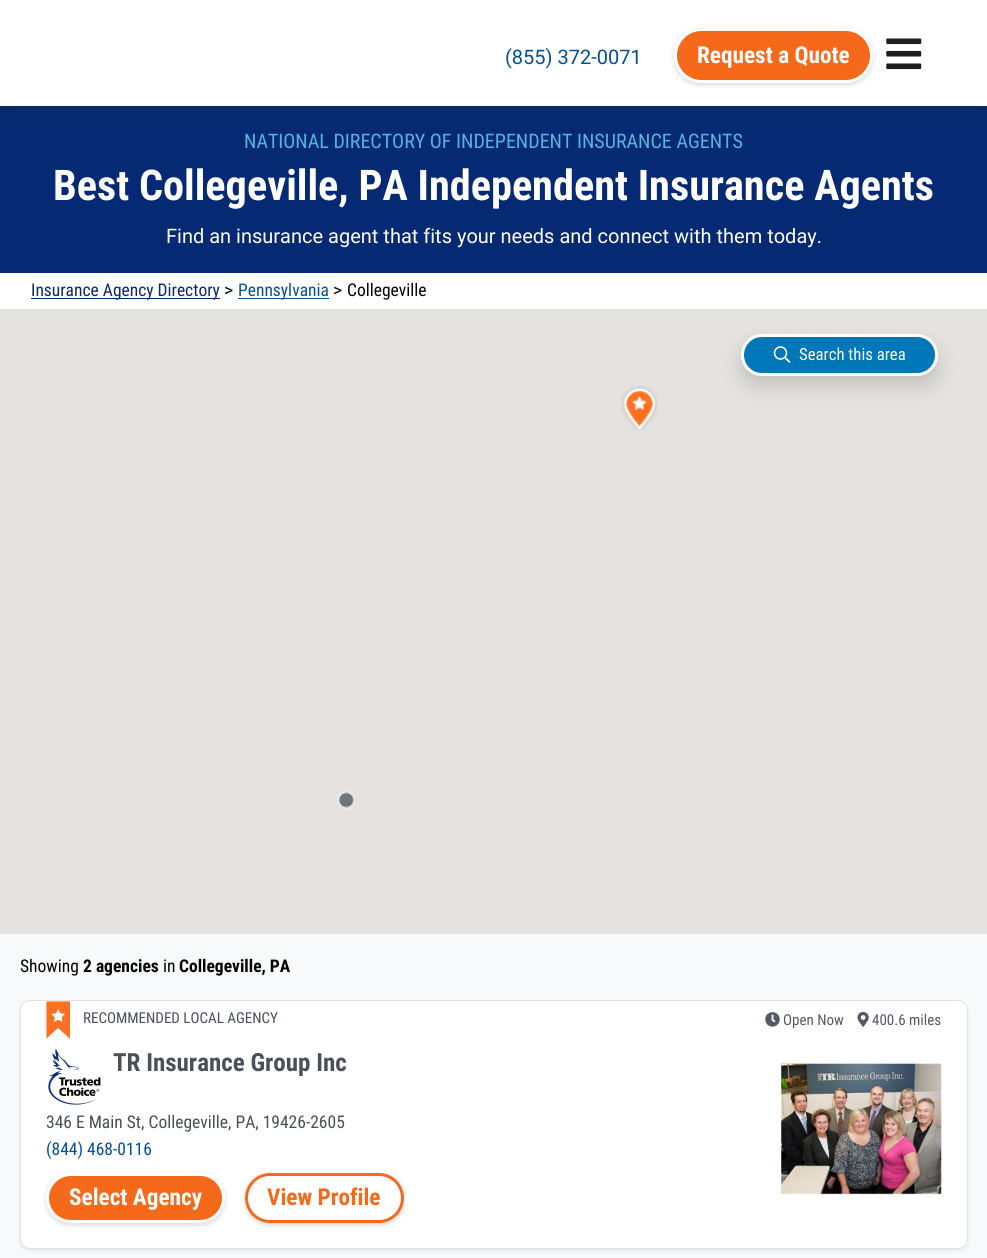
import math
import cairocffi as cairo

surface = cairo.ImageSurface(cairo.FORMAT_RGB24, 987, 1258)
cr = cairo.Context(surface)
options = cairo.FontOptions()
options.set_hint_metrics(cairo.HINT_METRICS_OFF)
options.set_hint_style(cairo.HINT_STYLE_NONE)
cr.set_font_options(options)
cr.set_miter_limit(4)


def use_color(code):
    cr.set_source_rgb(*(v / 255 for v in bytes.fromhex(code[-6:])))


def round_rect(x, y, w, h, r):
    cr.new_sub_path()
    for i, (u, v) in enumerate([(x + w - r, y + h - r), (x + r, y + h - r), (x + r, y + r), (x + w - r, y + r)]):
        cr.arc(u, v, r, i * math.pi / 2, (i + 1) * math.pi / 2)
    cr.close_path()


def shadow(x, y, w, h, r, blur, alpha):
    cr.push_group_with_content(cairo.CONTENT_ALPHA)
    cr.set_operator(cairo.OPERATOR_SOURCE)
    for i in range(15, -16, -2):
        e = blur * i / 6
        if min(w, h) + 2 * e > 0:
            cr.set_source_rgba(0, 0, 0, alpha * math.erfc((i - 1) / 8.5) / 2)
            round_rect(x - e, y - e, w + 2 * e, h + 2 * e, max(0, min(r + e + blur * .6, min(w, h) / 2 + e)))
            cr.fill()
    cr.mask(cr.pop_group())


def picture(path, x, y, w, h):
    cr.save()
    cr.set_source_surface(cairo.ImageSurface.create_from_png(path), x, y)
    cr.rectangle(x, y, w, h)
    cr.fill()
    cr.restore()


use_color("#ffffff")
cr.paint()
use_color("#062974")
cr.rectangle(0, 106, 987, 167)
cr.fill()
cr.save()
cr.rectangle(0, 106, 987, 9)
cr.clip()
use_color("#292929")
shadow(0, 3, 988, 106, 0, 4.5, 0.25)
cr.restore()
cr.select_font_face("Roboto")
cr.set_font_size(20)
use_color("#035096")
cr.move_to(505, 64)
cr.show_text("(855) 372-0071")
use_color("#000000")
shadow(674, 30, 199, 55, 27.5, 2.5, 0.15)
use_color("#f6691a")
round_rect(675.5, 29.5, 196, 52, 26)
cr.fill_preserve()
use_color("#ffffff")
cr.set_line_width(3)
cr.stroke()
cr.select_font_face("Roboto Condensed", cairo.FONT_SLANT_NORMAL, cairo.FONT_WEIGHT_BOLD)
cr.set_font_size(23.25)
cr.move_to(697, 63)
cr.show_text("Request a Quote")
picture("img1.png", 886, 38, 36, 32)
cr.select_font_face("Roboto Condensed")
cr.set_font_size(20)
use_color("#58b2dd")
cr.move_to(244, 148)
cr.show_text("NATIONAL DIRECTORY OF INDEPENDENT INSURANCE AGENTS")
cr.select_font_face("Roboto Condensed", cairo.FONT_SLANT_NORMAL, cairo.FONT_WEIGHT_BOLD)
cr.set_font_size(42.3)
use_color("#ffffff")
cr.move_to(53, 200)
cr.show_text("Best Collegeville, PA Independent Insurance Agents")
cr.select_font_face("Roboto")
cr.set_font_size(20)
cr.move_to(166, 243)
cr.show_text("Find an insurance agent that fits your needs and connect with them today.")
use_color("#062974")
cr.rectangle(31, 298, 189, 1)
cr.fill()
cr.select_font_face("Roboto Condensed")
cr.set_font_size(17.5)
cr.move_to(31, 296)
cr.show_text("Insurance Agency Directory")
cr.select_font_face("Roboto")
use_color("#030303")
cr.move_to(224, 296)
cr.show_text(">")
use_color("#035096")
cr.rectangle(238, 298, 91, 1)
cr.fill()
cr.select_font_face("Roboto Condensed")
cr.move_to(238, 296)
cr.show_text("Pennsylvania")
cr.select_font_face("Roboto")
use_color("#030303")
cr.move_to(333, 296)
cr.show_text(">")
cr.select_font_face("Roboto Condensed")
cr.move_to(347, 296)
cr.show_text("Collegeville")
use_color("#e5e3df")
cr.rectangle(0, 309, 987, 625)
cr.fill()
picture("img2.png", 621, 385, 37, 47)
picture("img3.png", 337, 791, 18, 18)
use_color("#000000")
shadow(741, 344, 197, 42, 21, 10, 0.15)
use_color("#0077b8")
round_rect(742.5, 335.5, 194, 39, 19.5)
cr.fill_preserve()
use_color("#ffffff")
cr.stroke()
picture("img4.png", 773, 346, 18, 17)
cr.set_font_size(16.75)
cr.move_to(799, 360)
cr.show_text("Search this area")
use_color("#f8f9fa")
cr.rectangle(0, 934, 987, 324)
cr.fill()
cr.set_font_size(17.5)
use_color("#030303")
cr.move_to(20, 972)
cr.show_text("Showing")
cr.select_font_face("Roboto Condensed", cairo.FONT_SLANT_NORMAL, cairo.FONT_WEIGHT_BOLD)
cr.move_to(83, 972)
cr.show_text("2 agencies")
cr.select_font_face("Roboto Condensed")
cr.move_to(163, 972)
cr.show_text("in")
cr.select_font_face("Roboto Condensed", cairo.FONT_SLANT_NORMAL, cairo.FONT_WEIGHT_BOLD)
cr.move_to(179, 972)
cr.show_text("Collegeville, PA")
use_color("#000000")
shadow(20, 1003, 948, 248, 10, 2.5, 0.07)
use_color("#ffffff")
round_rect(20, 1000, 948, 249, 10)
cr.fill()
round_rect(20.5, 1000.5, 947, 248, 9.5)
cr.set_source_rgba(0, 0, 0, 0.12)
cr.set_line_width(1)
cr.stroke()
picture("img5.png", 46, 1001, 24, 38)
cr.select_font_face("Roboto Condensed")
cr.set_font_size(15)
use_color("#495057")
cr.move_to(83, 1023)
cr.show_text("RECOMMENDED LOCAL AGENCY")
picture("img6.png", 765, 1012, 15, 15)
use_color("#545963")
cr.move_to(783, 1025)
cr.show_text("Open Now")
picture("img7.png", 857, 1011, 12, 16)
cr.move_to(872, 1025)
cr.show_text("400.6 miles")
picture("img8.png", 48, 1049, 53, 56)
cr.select_font_face("Roboto Condensed", cairo.FONT_SLANT_NORMAL, cairo.FONT_WEIGHT_BOLD)
cr.set_font_size(25)
use_color("#495057")
cr.move_to(113, 1071)
cr.show_text("TR Insurance Group Inc")
cr.select_font_face("Roboto Condensed")
cr.set_font_size(17.5)
cr.move_to(46, 1128)
cr.show_text("346 E Main St, Collegeville, PA, 19426-2605")
use_color("#035096")
cr.move_to(46, 1155)
cr.show_text("(844) 468-0116")
use_color("#000000")
shadow(46, 1175, 179, 50, 25, 2.5, 0.15)
use_color("#f6691a")
round_rect(47.5, 1174.5, 176, 47, 23.5)
cr.fill_preserve()
use_color("#ffffff")
cr.set_line_width(3)
cr.stroke()
cr.select_font_face("Roboto Condensed", cairo.FONT_SLANT_NORMAL, cairo.FONT_WEIGHT_BOLD)
cr.set_font_size(23.25)
cr.move_to(69, 1205)
cr.show_text("Select Agency")
cr.save()
cr.set_fill_rule(cairo.FILL_RULE_EVEN_ODD)
cr.new_path()
cr.move_to(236, 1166)
cr.line_to(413, 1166)
cr.line_to(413, 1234)
cr.line_to(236, 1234)
cr.close_path()
cr.move_to(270, 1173)
cr.line_to(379, 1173)
cr.curve_to(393, 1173, 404, 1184, 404, 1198)
cr.curve_to(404, 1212, 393, 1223, 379, 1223)
cr.line_to(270, 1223)
cr.curve_to(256, 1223, 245, 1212, 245, 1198)
cr.curve_to(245, 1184, 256, 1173, 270, 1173)
cr.close_path()
cr.clip()
use_color("#000000")
shadow(245, 1175, 159, 50, 25, 2.5, 0.15)
cr.restore()
round_rect(246.5, 1174.5, 156, 47, 23.5)
use_color("#f6691a")
cr.stroke()
cr.move_to(267, 1205)
cr.show_text("View Profile")
picture("img9.png", 781, 1063, 161, 132)
surface.write_to_png("result.png")
